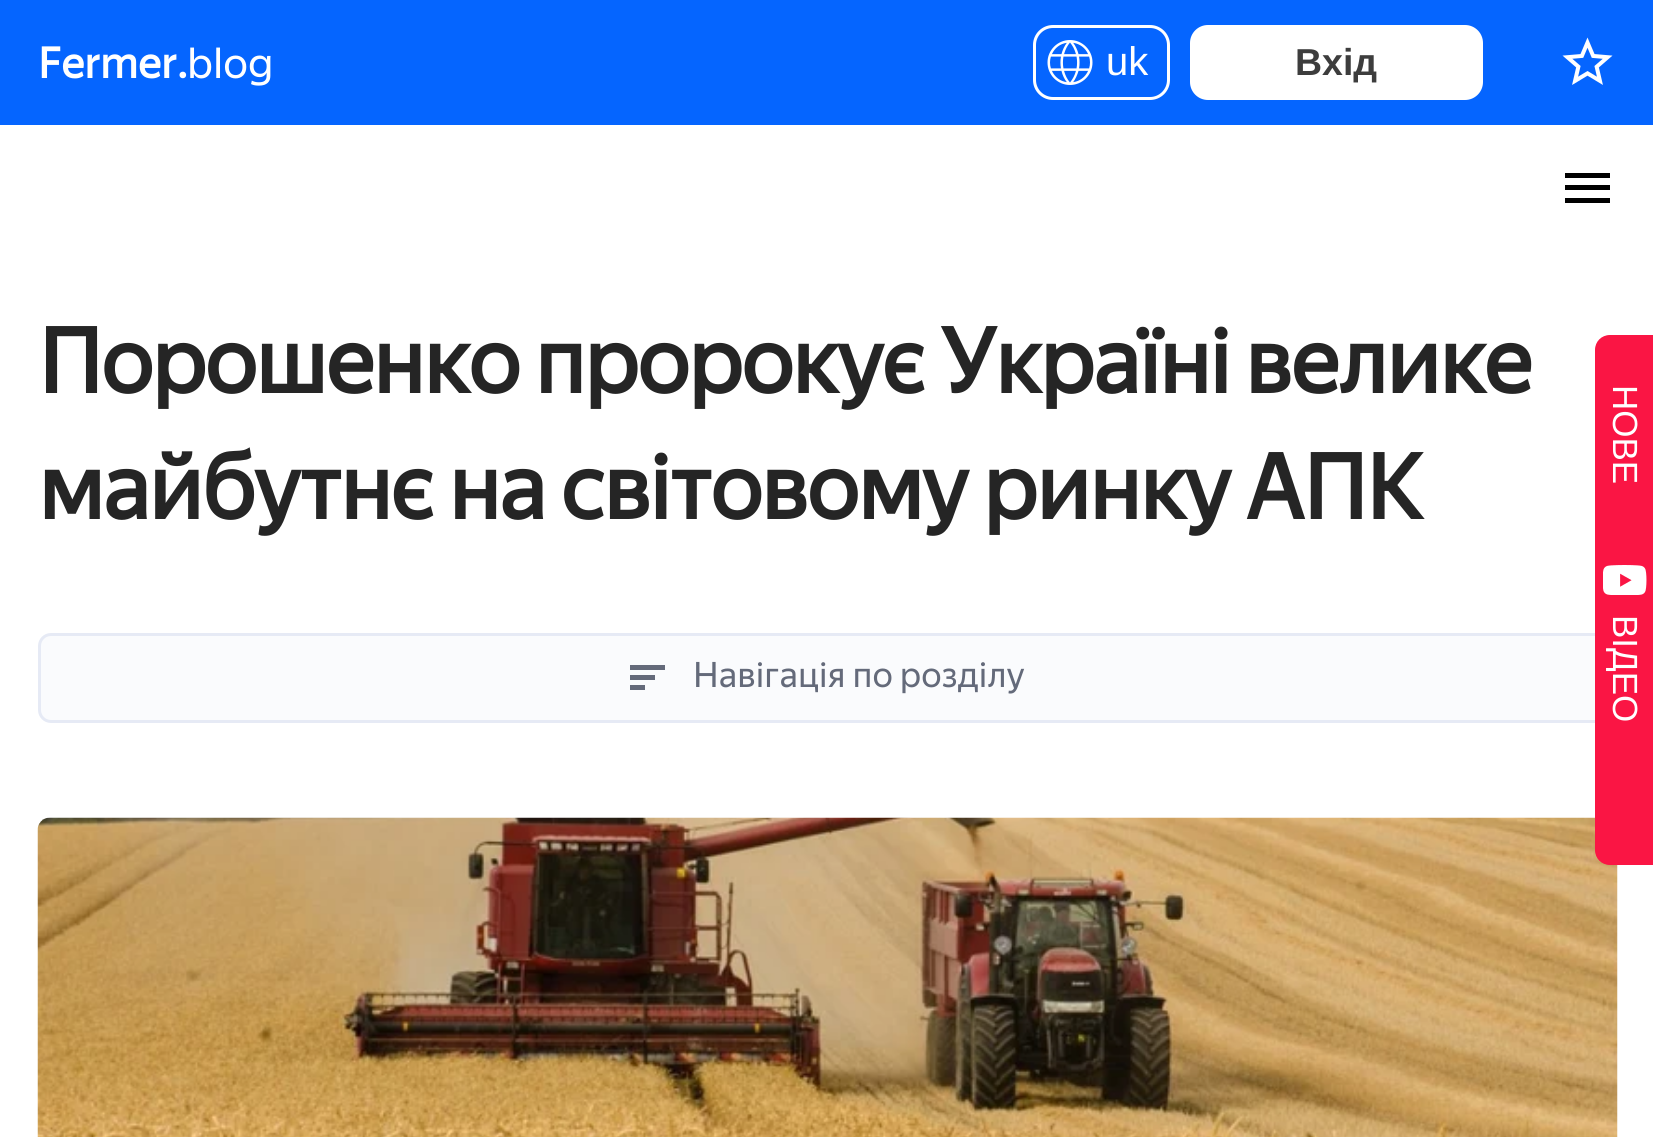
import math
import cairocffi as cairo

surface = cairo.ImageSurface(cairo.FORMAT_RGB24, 1653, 1137)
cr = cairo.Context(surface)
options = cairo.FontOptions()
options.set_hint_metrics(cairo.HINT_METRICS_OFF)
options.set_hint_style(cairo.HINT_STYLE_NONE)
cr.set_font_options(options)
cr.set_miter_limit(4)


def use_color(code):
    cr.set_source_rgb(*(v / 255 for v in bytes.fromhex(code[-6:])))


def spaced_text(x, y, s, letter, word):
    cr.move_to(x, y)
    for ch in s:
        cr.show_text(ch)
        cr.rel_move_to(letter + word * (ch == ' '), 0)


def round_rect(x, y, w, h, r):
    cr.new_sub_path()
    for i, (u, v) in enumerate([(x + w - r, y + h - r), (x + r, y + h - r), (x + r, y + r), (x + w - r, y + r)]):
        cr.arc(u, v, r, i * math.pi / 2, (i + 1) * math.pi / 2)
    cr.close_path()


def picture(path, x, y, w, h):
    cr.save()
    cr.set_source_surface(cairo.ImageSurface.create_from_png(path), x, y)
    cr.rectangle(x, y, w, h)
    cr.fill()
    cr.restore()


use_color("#ffffff")
cr.paint()
use_color("#0565ff")
cr.rectangle(0, 0, 1653, 125)
cr.fill()
cr.select_font_face("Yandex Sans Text", cairo.FONT_SLANT_NORMAL, cairo.FONT_WEIGHT_BOLD)
cr.set_font_size(42.5)
use_color("#ffffff")
cr.move_to(38, 78)
cr.show_text("Fermer.")
cr.select_font_face("Yandex Sans Text")
cr.move_to(187, 78)
cr.show_text("blog")
round_rect(1034.5, 26.5, 134, 72, 18.5)
cr.set_line_width(3)
cr.stroke()
picture("img1.png", 1047, 40, 46, 45)
cr.select_font_face("Liberation Sans")
cr.set_font_size(40)
cr.move_to(1106, 75)
cr.show_text("uk")
round_rect(1190, 25, 293, 75, 18)
cr.fill()
cr.select_font_face("Liberation Sans", cairo.FONT_SLANT_NORMAL, cairo.FONT_WEIGHT_BOLD)
cr.set_font_size(37.5)
use_color("#3d3d3d")
cr.move_to(1295, 75)
cr.show_text("Вхід")
picture("img2.png", 1562, 37, 51, 48)
use_color("#000000")
cr.rectangle(1565, 173, 45, 5)
cr.fill()
cr.rectangle(1565, 185, 45, 5)
cr.fill()
cr.rectangle(1565, 198, 45, 5)
cr.fill()
cr.select_font_face("Yandex Sans Text", cairo.FONT_SLANT_NORMAL, cairo.FONT_WEIGHT_BOLD)
cr.set_font_size(90)
use_color("#252525")
spaced_text(38, 393, "Порошенко пророкує Україні велике", -1.8, 0)
spaced_text(38, 519, "майбутнє на світовому ринку АПК", -1.8, 0)
use_color("#fafbfd")
round_rect(39.5, 634.5, 1577, 87, 11.5)
cr.fill_preserve()
use_color("#e6eaf5")
cr.stroke()
use_color("#646a7a")
cr.rectangle(630, 675, 25, 5)
cr.fill()
cr.rectangle(630, 665, 35, 5)
cr.fill()
cr.rectangle(630, 685, 15, 5)
cr.fill()
cr.select_font_face("Yandex Sans Text")
cr.set_font_size(35)
cr.move_to(693, 687)
cr.show_text("Навігація по розділу")
picture("img3.png", 37, 817, 1581, 320)
use_color("#fa1544")
cr.new_path()
cr.move_to(1610, 335)
cr.line_to(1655, 335)
cr.line_to(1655, 865)
cr.line_to(1610, 865)
cr.curve_to(1601.5, 865, 1595, 858.5, 1595, 850)
cr.line_to(1595, 350)
cr.curve_to(1595, 341.5, 1601.5, 335, 1610, 335)
cr.close_path()
cr.fill()
cr.select_font_face("Liberation Sans")
use_color("#ffffff")
cr.save()
cr.translate(1613, 385)
cr.rotate(90 * math.pi / 180)
cr.move_to(0, 0)
cr.show_text("НОВЕ")
cr.restore()
picture("img4.png", 1603, 565, 44, 30)
cr.save()
cr.translate(1613, 615)
cr.rotate(90 * math.pi / 180)
cr.move_to(0, 0)
cr.show_text("ВІДЕО")
cr.restore()
surface.write_to_png("result.png")
